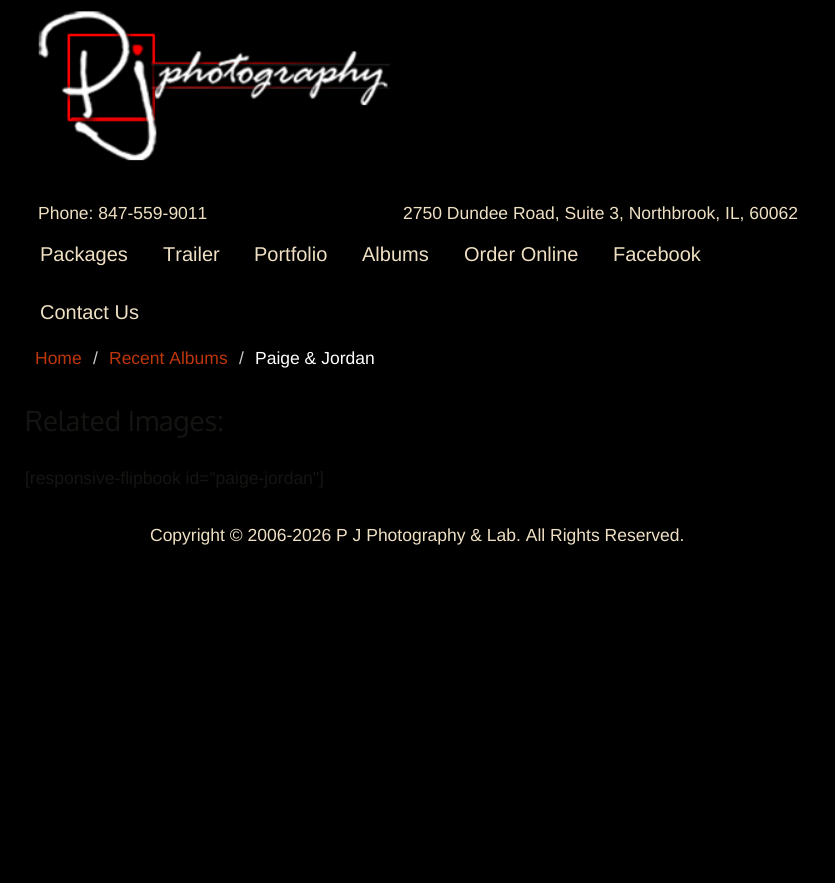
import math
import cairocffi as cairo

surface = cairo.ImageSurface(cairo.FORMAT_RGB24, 835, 883)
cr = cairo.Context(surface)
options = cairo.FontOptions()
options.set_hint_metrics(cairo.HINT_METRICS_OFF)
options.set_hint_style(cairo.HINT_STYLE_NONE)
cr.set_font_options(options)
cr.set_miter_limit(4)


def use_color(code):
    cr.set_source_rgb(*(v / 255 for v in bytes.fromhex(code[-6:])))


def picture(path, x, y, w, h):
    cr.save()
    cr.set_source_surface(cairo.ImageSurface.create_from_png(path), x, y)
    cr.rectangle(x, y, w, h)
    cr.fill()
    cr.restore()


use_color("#000000")
cr.paint()
picture("img1.png", 38, 11, 352, 150)
cr.select_font_face("Liberation Sans")
cr.set_font_size(17.5)
use_color("#efe0c3")
cr.move_to(38, 219)
cr.show_text("Phone: 847-559-9011")
cr.move_to(403, 219)
cr.show_text("2750 Dundee Road, Suite 3, Northbrook, IL, 60062")
cr.set_font_size(20)
cr.move_to(40, 261)
cr.show_text("Packages")
cr.move_to(163, 261)
cr.show_text("Trailer")
cr.move_to(254, 261)
cr.show_text("Portfolio")
cr.move_to(362, 261)
cr.show_text("Albums")
cr.move_to(464, 261)
cr.show_text("Order Online")
cr.move_to(613, 261)
cr.show_text("Facebook")
cr.move_to(40, 319)
cr.show_text("Contact Us")
cr.set_font_size(17.5)
use_color("#bc360a")
cr.move_to(35, 364)
cr.show_text("Home")
use_color("#cccccc")
cr.move_to(93, 364)
cr.show_text("/")
use_color("#bc360a")
cr.move_to(109, 364)
cr.show_text("Recent Albums")
use_color("#cccccc")
cr.move_to(239, 364)
cr.show_text("/")
use_color("#ffffff")
cr.move_to(255, 364)
cr.show_text("Paige & Jordan")
cr.select_font_face("Oxygen")
cr.set_font_size(27.5)
use_color("#141412")
cr.move_to(25, 431)
cr.show_text("Related Images:")
cr.select_font_face("Liberation Sans")
cr.set_font_size(17.5)
cr.move_to(25, 484)
cr.show_text("[responsive-flipbook id=\"paige-jordan\"]")
use_color("#efe0c3")
cr.move_to(150, 541)
cr.show_text("Copyright © 2006-2026 P J Photography & Lab. All Rights Reserved.")
surface.write_to_png("result.png")
